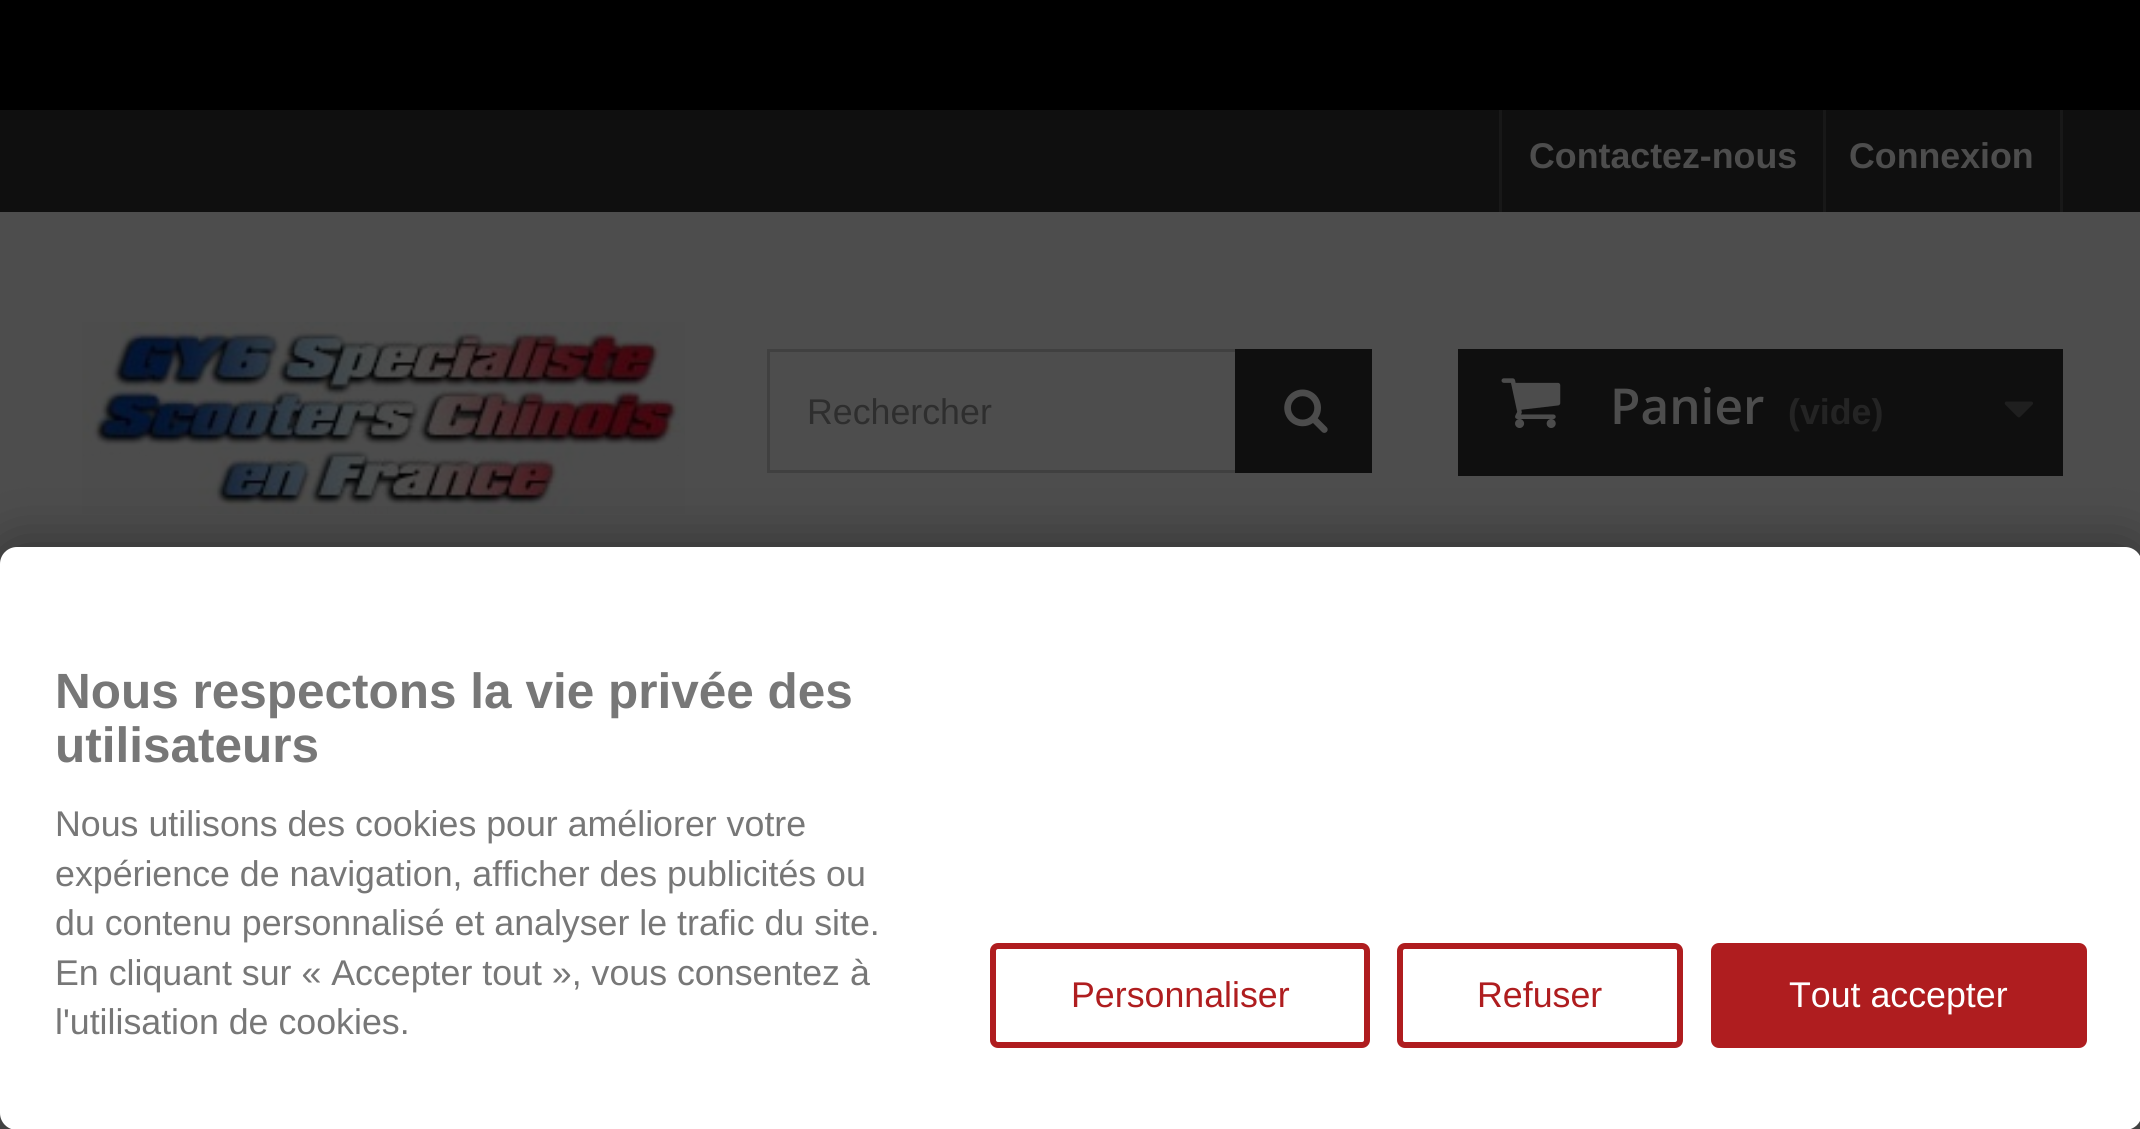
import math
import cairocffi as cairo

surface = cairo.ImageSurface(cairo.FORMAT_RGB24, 2140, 1129)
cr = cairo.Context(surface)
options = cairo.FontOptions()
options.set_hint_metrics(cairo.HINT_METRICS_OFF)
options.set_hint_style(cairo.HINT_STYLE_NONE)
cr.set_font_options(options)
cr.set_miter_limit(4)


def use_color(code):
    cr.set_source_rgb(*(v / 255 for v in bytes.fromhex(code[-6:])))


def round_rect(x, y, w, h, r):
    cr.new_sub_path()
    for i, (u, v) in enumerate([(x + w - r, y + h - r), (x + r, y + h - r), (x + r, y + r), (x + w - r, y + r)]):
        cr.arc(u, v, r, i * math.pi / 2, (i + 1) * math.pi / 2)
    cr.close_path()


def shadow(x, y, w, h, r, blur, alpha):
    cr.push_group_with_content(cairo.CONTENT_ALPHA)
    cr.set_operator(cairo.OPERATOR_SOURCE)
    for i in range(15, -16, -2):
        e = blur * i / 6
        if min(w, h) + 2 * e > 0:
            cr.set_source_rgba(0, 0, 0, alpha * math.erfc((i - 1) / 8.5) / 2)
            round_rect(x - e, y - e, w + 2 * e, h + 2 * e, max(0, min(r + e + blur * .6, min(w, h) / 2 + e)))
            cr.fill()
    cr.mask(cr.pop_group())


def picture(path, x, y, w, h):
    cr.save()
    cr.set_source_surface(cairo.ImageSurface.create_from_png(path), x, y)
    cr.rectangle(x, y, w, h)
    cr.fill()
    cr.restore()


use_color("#4d4d4d")
cr.paint()
use_color("#000000")
cr.rectangle(0, 0, 2140, 110)
cr.fill()
use_color("#0f0f0f")
cr.rectangle(0, 110, 2140, 102)
cr.fill()
use_color("#181818")
cr.rectangle(1499, 110, 3, 102)
cr.fill()
cr.select_font_face("Liberation Sans", cairo.FONT_SLANT_NORMAL, cairo.FONT_WEIGHT_BOLD)
cr.set_font_size(35.75)
use_color("#4d4d4d")
cr.move_to(1529, 168)
cr.show_text("Contactez-nous")
use_color("#181818")
cr.rectangle(2060, 110, 3, 102)
cr.fill()
cr.rectangle(1823, 110, 3, 102)
cr.fill()
use_color("#4d4d4d")
cr.move_to(1849, 168)
cr.show_text("Connexion")
picture("img1.png", 82, 321, 603, 193)
cr.rectangle(768.5, 350.5, 602, 121)
use_color("#404040")
cr.set_line_width(3)
cr.stroke()
cr.select_font_face("Liberation Sans")
use_color("#2e2e2e")
cr.move_to(807, 424)
cr.show_text("Rechercher")
use_color("#0f0f0f")
cr.rectangle(1235, 349, 137, 124)
cr.fill()
picture("img2.png", 1284, 389, 44, 44)
cr.rectangle(1458, 349, 605, 127)
cr.fill()
picture("img3.png", 1501, 378, 60, 50)
cr.select_font_face("Open Sans SemiBold")
cr.set_font_size(49.5)
use_color("#4d4d4d")
cr.move_to(1610, 424)
cr.show_text("Panier")
cr.select_font_face("Liberation Sans", cairo.FONT_SLANT_NORMAL, cairo.FONT_WEIGHT_BOLD)
cr.set_font_size(35.75)
use_color("#242424")
cr.move_to(1788, 424)
cr.show_text("(vide)")
picture("img4.png", 2004, 401, 29, 17)
use_color("#000000")
shadow(0, 547, 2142, 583, 17, 27.5, 0.4)
use_color("#ffffff")
round_rect(0, 547, 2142, 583, 17)
cr.fill()
cr.set_font_size(49.5)
use_color("#777777")
cr.move_to(55, 708)
cr.show_text("Nous respectons la vie privée des")
cr.move_to(55, 762)
cr.show_text("utilisateurs")
cr.select_font_face("Liberation Sans")
cr.set_font_size(35.75)
cr.move_to(55, 836)
cr.show_text("Nous utilisons des cookies pour améliorer votre")
cr.move_to(55, 886)
cr.show_text("expérience de navigation, afficher des publicités ou")
cr.move_to(55, 935)
cr.show_text("du contenu personnalisé et analyser le trafic du site.")
cr.move_to(55, 985)
cr.show_text("En cliquant sur « Accepter tout », vous consentez à")
cr.move_to(55, 1034)
cr.show_text("l'utilisation de cookies.")
round_rect(993, 946, 374, 99, 5)
use_color("#af1d1f")
cr.set_line_width(6)
cr.stroke()
cr.move_to(1071, 1007)
cr.show_text("Personnaliser")
round_rect(1400, 946, 280, 99, 5)
cr.stroke()
cr.move_to(1477, 1007)
cr.show_text("Refuser")
round_rect(1714, 946, 370, 99, 5)
cr.fill_preserve()
cr.stroke()
use_color("#ffffff")
cr.move_to(1789, 1007)
cr.show_text("Tout accepter")
surface.write_to_png("result.png")
